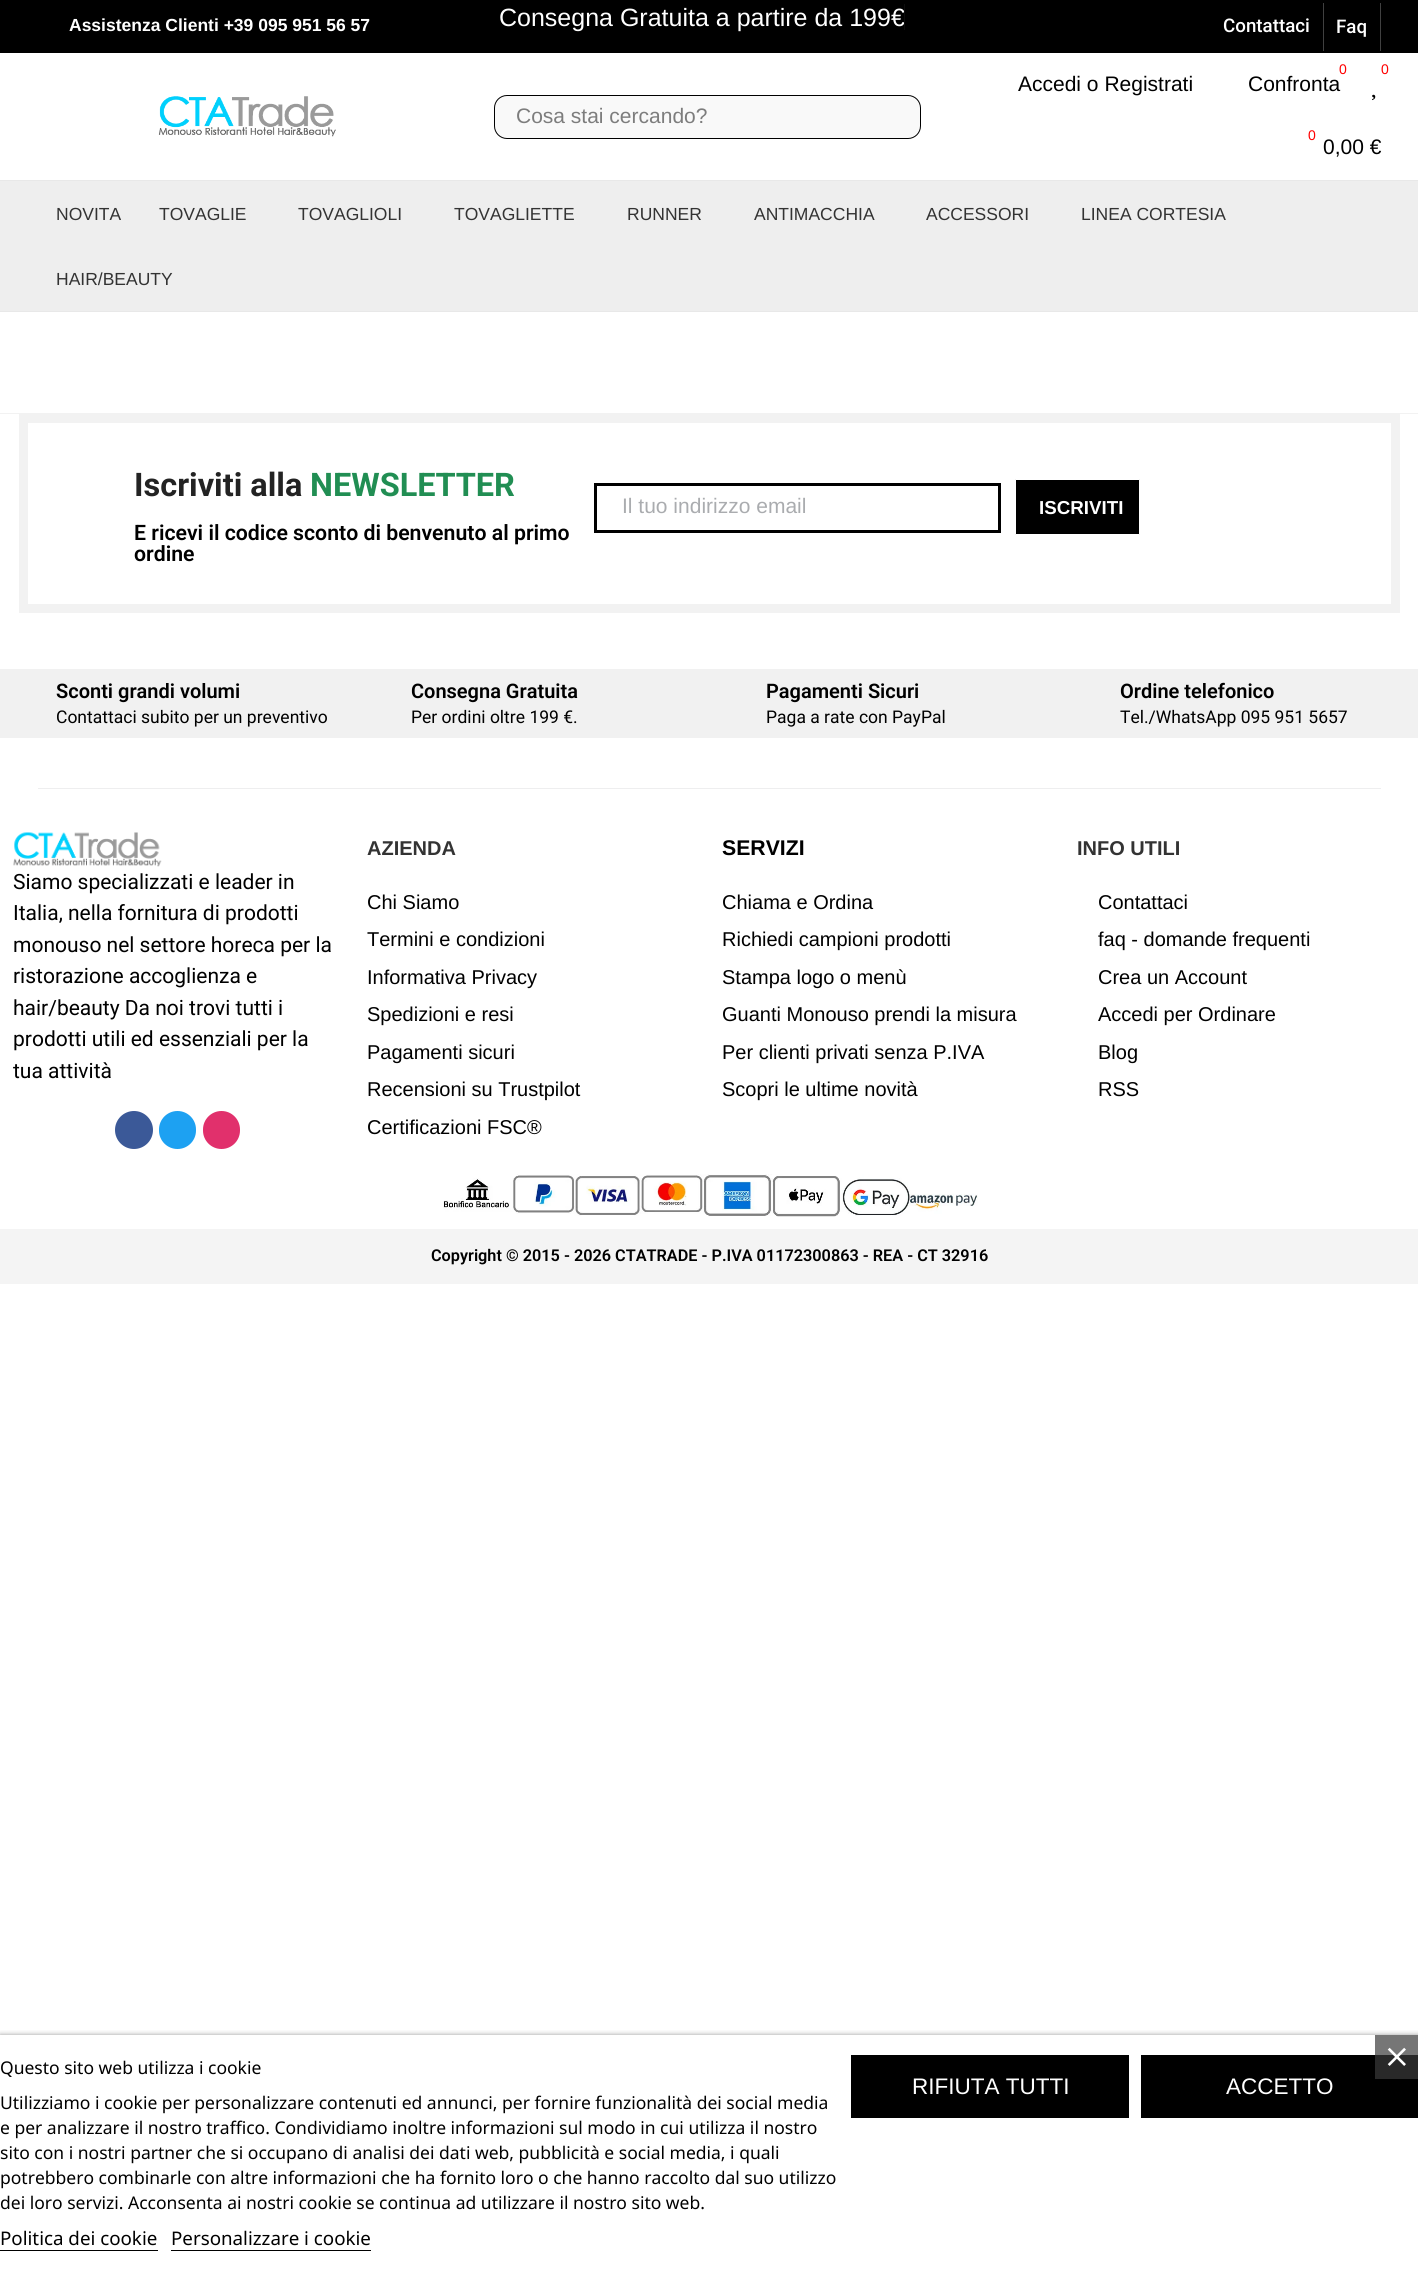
import math
import cairocffi as cairo

surface = cairo.ImageSurface(cairo.FORMAT_RGB24, 1418, 2269)
cr = cairo.Context(surface)
options = cairo.FontOptions()
options.set_hint_metrics(cairo.HINT_METRICS_OFF)
options.set_hint_style(cairo.HINT_STYLE_NONE)
cr.set_font_options(options)
cr.set_miter_limit(4)


def use_color(code):
    cr.set_source_rgb(*(v / 255 for v in bytes.fromhex(code[-6:])))


def round_rect(x, y, w, h, r):
    cr.new_sub_path()
    for i, (u, v) in enumerate([(x + w - r, y + h - r), (x + r, y + h - r), (x + r, y + r), (x + w - r, y + r)]):
        cr.arc(u, v, r, i * math.pi / 2, (i + 1) * math.pi / 2)
    cr.close_path()


def shadow(x, y, w, h, r, blur, alpha):
    cr.push_group_with_content(cairo.CONTENT_ALPHA)
    cr.set_operator(cairo.OPERATOR_SOURCE)
    for i in range(15, -16, -2):
        e = blur * i / 6
        if min(w, h) + 2 * e > 0:
            cr.set_source_rgba(0, 0, 0, alpha * math.erfc((i - 1) / 8.5) / 2)
            round_rect(x - e, y - e, w + 2 * e, h + 2 * e, max(0, min(r + e + blur * .6, min(w, h) / 2 + e)))
            cr.fill()
    cr.mask(cr.pop_group())


def picture(path, x, y, w, h):
    cr.save()
    cr.set_source_surface(cairo.ImageSurface.create_from_png(path), x, y)
    cr.rectangle(x, y, w, h)
    cr.fill()
    cr.restore()


use_color("#ffffff")
cr.paint()
use_color("#767676")
cr.rectangle(1375, 2035, 43, 20)
cr.fill()
use_color("#000000")
cr.rectangle(0, 0, 1418, 53)
cr.fill()
cr.select_font_face("Liberation Sans", cairo.FONT_SLANT_NORMAL, cairo.FONT_WEIGHT_BOLD)
cr.set_font_size(17.5)
use_color("#ffffff")
cr.move_to(69, 31)
cr.show_text("Assistenza Clienti +39 095 951 56 57")
cr.select_font_face("Liberation Sans")
cr.set_font_size(25)
cr.move_to(499, 26)
cr.show_text("Consegna Gratuita a partire da 199€")
use_color("#0d0d0d")
cr.rectangle(904, 4, 1, 26)
cr.fill()
cr.select_font_face("Roboto Medium")
cr.set_font_size(18.75)
use_color("#ffffff")
cr.move_to(1223, 32)
cr.show_text("Contattaci")
use_color("#404040")
cr.rectangle(1380, 3, 1, 48)
cr.fill()
cr.rectangle(1323, 3, 1, 48)
cr.fill()
use_color("#ffffff")
cr.move_to(1336, 33)
cr.show_text("Faq")
use_color("#e8e8e8")
cr.rectangle(0, 180, 1418, 1)
cr.fill()
picture("img1.png", 158, 96, 178, 41)
use_color("#f9f9f9")
round_rect(494.5, 95.5, 426, 43, 12.5)
cr.fill_preserve()
use_color("#000000")
cr.set_line_width(1)
cr.stroke()
cr.select_font_face("Liberation Sans")
cr.set_font_size(21)
use_color("#7d7d7d")
cr.move_to(516, 123)
cr.show_text("Cosa stai cercando?")
cr.set_font_size(14)
use_color("#ff0000")
cr.move_to(1339, 74)
cr.show_text("0")
cr.set_font_size(21)
use_color("#000000")
cr.move_to(1248, 91)
cr.show_text("Confronta")
cr.set_font_size(14)
use_color("#ff0000")
cr.move_to(1381, 74)
cr.show_text("0")
picture("img2.png", 1372, 94, 4, 7)
cr.set_font_size(21)
use_color("#000000")
cr.move_to(1018, 91)
cr.show_text("Accedi o Registrati")
cr.set_font_size(14)
use_color("#ff0000")
cr.move_to(1308, 140)
cr.show_text("0")
cr.set_font_size(21)
use_color("#000000")
cr.move_to(1323, 154)
cr.show_text("0,00 €")
use_color("#eeeeee")
cr.rectangle(0, 181, 1418, 130)
cr.fill()
use_color("#e8e8e8")
cr.rectangle(0, 311, 1418, 1)
cr.fill()
cr.set_font_size(17.5)
use_color("#333333")
cr.move_to(56, 220)
cr.show_text("NOVITA")
cr.move_to(159, 220)
cr.show_text("TOVAGLIE")
cr.move_to(298, 220)
cr.show_text("TOVAGLIOLI")
cr.move_to(454, 220)
cr.show_text("TOVAGLIETTE")
cr.move_to(627, 220)
cr.show_text("RUNNER")
cr.move_to(754, 220)
cr.show_text("ANTIMACCHIA")
cr.move_to(926, 220)
cr.show_text("ACCESSORI")
cr.move_to(1081, 220)
cr.show_text("LINEA CORTESIA")
cr.move_to(56, 285)
cr.show_text("HAIR/BEAUTY")
use_color("#f2f2f2")
cr.rectangle(0, 413, 1418, 1)
cr.fill()
cr.rectangle(23.5, 418.5, 1372, 190)
cr.set_line_width(9)
cr.stroke()
cr.select_font_face("Roboto", cairo.FONT_SLANT_NORMAL, cairo.FONT_WEIGHT_BOLD)
cr.set_font_size(32.5)
use_color("#232323")
cr.move_to(134, 496)
cr.show_text("Iscriviti alla")
use_color("#218e53")
cr.move_to(310, 496)
cr.show_text("NEWSLETTER")
cr.select_font_face("Roboto SemiBold")
cr.set_font_size(21.25)
use_color("#000000")
cr.move_to(134, 540)
cr.show_text("E ricevi il codice sconto di benvenuto al primo")
cr.move_to(134, 561)
cr.show_text("ordine")
cr.rectangle(595.5, 484.5, 404, 47)
cr.set_line_width(3)
cr.stroke()
cr.select_font_face("Liberation Sans")
cr.set_font_size(21)
use_color("#aaacaf")
cr.move_to(622, 513)
cr.show_text("Il tuo indirizzo email")
use_color("#000000")
round_rect(1015.5, 479.5, 124, 55, 0.5)
cr.fill_preserve()
use_color("#ffffff")
cr.set_line_width(1)
cr.stroke()
cr.select_font_face("Liberation Sans", cairo.FONT_SLANT_NORMAL, cairo.FONT_WEIGHT_BOLD)
cr.set_font_size(18.75)
cr.move_to(1039, 514)
cr.show_text("ISCRIVITI")
use_color("#f1f1f1")
cr.rectangle(0, 669, 1418, 69)
cr.fill()
cr.select_font_face("Roboto SemiBold")
cr.set_font_size(20)
use_color("#000000")
cr.move_to(56, 698)
cr.show_text("Sconti grandi volumi")
cr.select_font_face("Roboto")
cr.set_font_size(17.5)
cr.move_to(56, 723)
cr.show_text("Contattaci subito per un preventivo")
cr.select_font_face("Roboto SemiBold")
cr.set_font_size(20)
cr.move_to(411, 698)
cr.show_text("Consegna Gratuita")
cr.select_font_face("Roboto")
cr.set_font_size(17.5)
cr.move_to(411, 723)
cr.show_text("Per ordini oltre 199 €.")
cr.select_font_face("Roboto SemiBold")
cr.set_font_size(20)
cr.move_to(766, 698)
cr.show_text("Pagamenti Sicuri")
cr.select_font_face("Roboto")
cr.set_font_size(17.5)
cr.move_to(766, 723)
cr.show_text("Paga a rate con PayPal")
cr.select_font_face("Roboto SemiBold")
cr.set_font_size(20)
cr.move_to(1120, 698)
cr.show_text("Ordine telefonico")
cr.select_font_face("Roboto")
cr.set_font_size(17.5)
cr.move_to(1120, 723)
cr.show_text("Tel./WhatsApp 095 951 5657")
use_color("#eeeeef")
cr.rectangle(38, 788, 1343, 1)
cr.fill()
picture("img3.png", 13, 832, 149, 35)
cr.set_font_size(21)
use_color("#000000")
cr.move_to(13, 889)
cr.show_text("Siamo specializzati e leader in")
cr.move_to(13, 920)
cr.show_text("Italia, nella fornitura di prodotti")
cr.move_to(13, 952)
cr.show_text("monouso nel settore horeca per la")
cr.move_to(13, 983)
cr.show_text("ristorazione accoglienza e")
cr.move_to(13, 1015)
cr.show_text("hair/beauty Da noi trovi tutti i")
cr.move_to(13, 1046)
cr.show_text("prodotti utili ed essenziali per la")
cr.move_to(13, 1078)
cr.show_text("tua attività")
use_color("#3b5998")
cr.new_path()
cr.arc(134, 1130, 19, 0, 2 * math.pi)
cr.fill()
use_color("#1da1f2")
round_rect(159, 1111, 37, 38, 18.5)
cr.fill()
use_color("#e1306c")
round_rect(203, 1111, 37, 38, 18.5)
cr.fill()
cr.select_font_face("Liberation Sans", cairo.FONT_SLANT_NORMAL, cairo.FONT_WEIGHT_BOLD)
cr.set_font_size(20)
use_color("#333333")
cr.move_to(367, 855)
cr.show_text("AZIENDA")
cr.select_font_face("Liberation Sans")
use_color("#000000")
cr.move_to(367, 909)
cr.show_text("Chi Siamo")
cr.move_to(367, 946)
cr.show_text("Termini e condizioni")
cr.move_to(367, 984)
cr.show_text("Informativa Privacy")
cr.move_to(367, 1021)
cr.show_text("Spedizioni e resi")
cr.move_to(367, 1059)
cr.show_text("Pagamenti sicuri")
cr.move_to(367, 1096)
cr.show_text("Recensioni su Trustpilot")
cr.move_to(367, 1134)
cr.show_text("Certificazioni FSC®")
cr.select_font_face("Liberation Sans", cairo.FONT_SLANT_NORMAL, cairo.FONT_WEIGHT_BOLD)
cr.set_font_size(21.25)
cr.move_to(722, 855)
cr.show_text("SERVIZI")
cr.select_font_face("Liberation Sans")
cr.set_font_size(20)
cr.move_to(722, 909)
cr.show_text("Chiama e Ordina")
cr.move_to(722, 946)
cr.show_text("Richiedi campioni prodotti")
cr.move_to(722, 984)
cr.show_text("Stampa logo o menù")
cr.move_to(722, 1021)
cr.show_text("Guanti Monouso prendi la misura")
cr.move_to(722, 1059)
cr.show_text("Per clienti privati senza P.IVA")
cr.move_to(722, 1096)
cr.show_text("Scopri le ultime novità")
cr.select_font_face("Liberation Sans", cairo.FONT_SLANT_NORMAL, cairo.FONT_WEIGHT_BOLD)
use_color("#333333")
cr.move_to(1077, 855)
cr.show_text("INFO UTILI")
cr.select_font_face("Liberation Sans")
use_color("#000000")
cr.move_to(1098, 909)
cr.show_text("Contattaci")
cr.move_to(1098, 946)
cr.show_text("faq - domande frequenti")
cr.move_to(1098, 984)
cr.show_text("Crea un Account")
cr.move_to(1098, 1021)
cr.show_text("Accedi per Ordinare")
cr.move_to(1098, 1059)
cr.show_text("Blog")
cr.move_to(1098, 1096)
cr.show_text("RSS")
picture("img4.png", 443, 1174, 535, 43)
use_color("#f4f4f4")
cr.rectangle(0, 1229, 1418, 55)
cr.fill()
cr.select_font_face("Roboto SemiBold")
cr.set_font_size(16.25)
use_color("#000000")
cr.move_to(431, 1261)
cr.show_text("Copyright © 2015 - 2026 CTATRADE - P.IVA 01172300863 - REA - CT 32916")
cr.save()
cr.rectangle(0, 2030, 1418, 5)
cr.clip()
use_color("#707070")
shadow(0, 2036, 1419, 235, 0, 3, 1)
cr.restore()
cr.rectangle(1141, 2055, 277, 63)
cr.fill()
use_color("#292929")
cr.rectangle(1375, 2055, 43, 24)
cr.fill()
picture("img5.png", 1387, 2047, 19, 19)
cr.select_font_face("Noto Sans")
cr.set_font_size(17.5)
use_color("#000000")
cr.move_to(0, 2074)
cr.show_text("Questo sito web utilizza i cookie")
cr.move_to(0, 2109)
cr.show_text("Utilizziamo i cookie per personalizzare contenuti ed annunci, per fornire funzionalità dei social media")
cr.move_to(0, 2134)
cr.show_text("e per analizzare il nostro traffico. Condividiamo inoltre informazioni sul modo in cui utilizza il nostro")
cr.move_to(0, 2159)
cr.show_text("sito con i nostri partner che si occupano di analisi dei dati web, pubblicità e social media, i quali")
cr.move_to(0, 2184)
cr.show_text("potrebbero combinarle con altre informazioni che ha fornito loro o che hanno raccolto dal suo utilizzo")
cr.move_to(0, 2209)
cr.show_text("dei loro servizi. Acconsenta ai nostri cookie se continua ad utilizzare il nostro sito web.")
cr.set_font_size(18.75)
cr.move_to(0, 2245)
cr.show_text("Politica dei cookie")
cr.rectangle(0, 2250, 158, 1)
cr.fill()
cr.move_to(171, 2245)
cr.show_text("Personalizzare i cookie")
cr.rectangle(171, 2250, 200, 1)
cr.fill()
cr.rectangle(851, 2055, 278, 63)
cr.fill()
cr.select_font_face("Liberation Sans")
cr.set_font_size(22.5)
use_color("#ffffff")
cr.move_to(912, 2094)
cr.show_text("RIFIUTA TUTTI")
cr.move_to(1226, 2094)
cr.show_text("ACCETTO")
surface.write_to_png("result.png")
